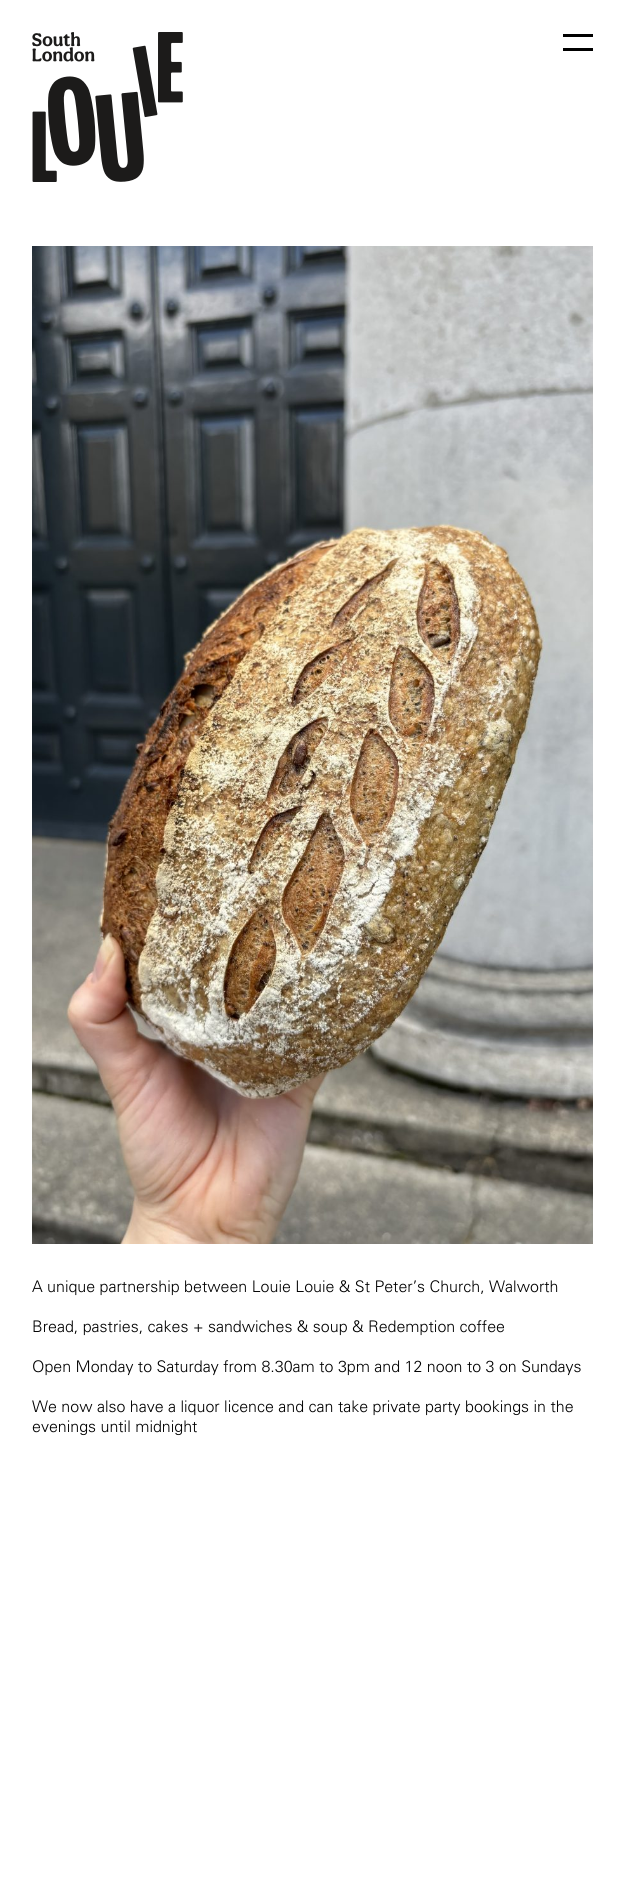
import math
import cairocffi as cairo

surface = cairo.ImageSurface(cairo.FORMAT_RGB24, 625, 1879)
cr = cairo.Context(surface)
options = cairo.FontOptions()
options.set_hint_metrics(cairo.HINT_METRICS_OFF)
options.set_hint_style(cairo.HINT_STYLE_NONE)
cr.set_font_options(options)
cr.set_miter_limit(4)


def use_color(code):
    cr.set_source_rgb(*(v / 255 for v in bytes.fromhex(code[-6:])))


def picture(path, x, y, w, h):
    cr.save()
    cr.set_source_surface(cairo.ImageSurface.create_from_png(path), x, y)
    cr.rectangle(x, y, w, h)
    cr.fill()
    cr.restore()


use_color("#ffffff")
cr.paint()
picture("img1.png", 32, 32, 151, 150)
use_color("#000000")
cr.rectangle(563, 34, 30, 3)
cr.fill()
cr.rectangle(563, 48, 30, 3)
cr.fill()
picture("img2.png", 32, 246, 561, 998)
cr.select_font_face("Univers Light")
cr.set_font_size(16)
cr.move_to(32, 1292)
cr.show_text("A unique partnership between Louie Louie & St Peter’s Church, Walworth")
cr.move_to(32, 1332)
cr.show_text("Bread, pastries, cakes + sandwiches & soup & Redemption coffee")
cr.move_to(32, 1372)
cr.show_text("Open Monday to Saturday from 8.30am to 3pm and 12 noon to 3 on Sundays")
cr.move_to(32, 1412)
cr.show_text("We now also have a liquor licence and can take private party bookings in the")
cr.move_to(32, 1432)
cr.show_text("evenings until midnight")
surface.write_to_png("result.png")
